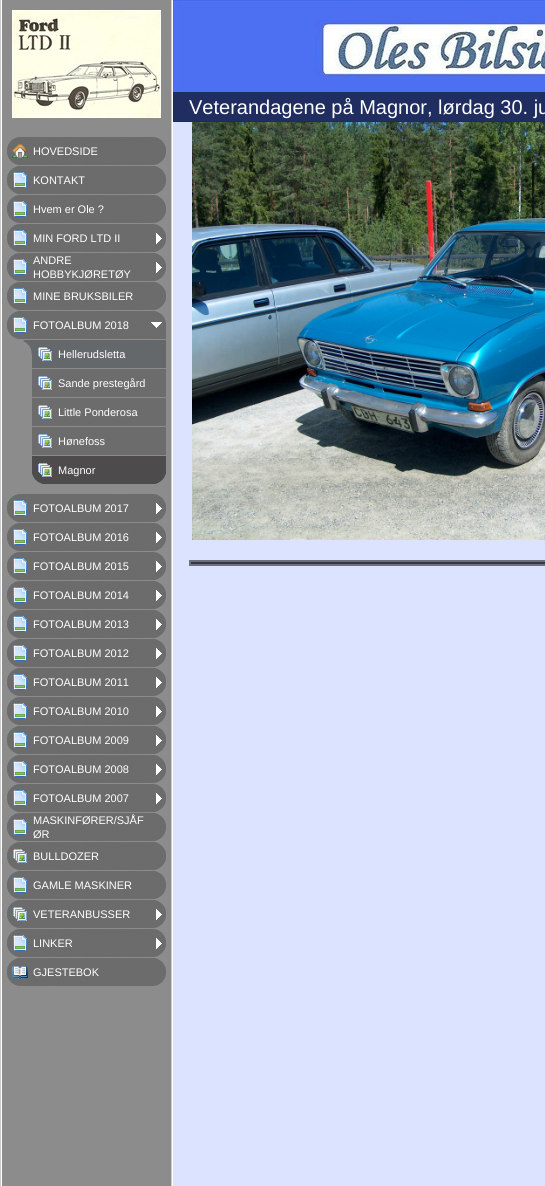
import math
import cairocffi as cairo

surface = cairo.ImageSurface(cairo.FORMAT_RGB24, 545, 1186)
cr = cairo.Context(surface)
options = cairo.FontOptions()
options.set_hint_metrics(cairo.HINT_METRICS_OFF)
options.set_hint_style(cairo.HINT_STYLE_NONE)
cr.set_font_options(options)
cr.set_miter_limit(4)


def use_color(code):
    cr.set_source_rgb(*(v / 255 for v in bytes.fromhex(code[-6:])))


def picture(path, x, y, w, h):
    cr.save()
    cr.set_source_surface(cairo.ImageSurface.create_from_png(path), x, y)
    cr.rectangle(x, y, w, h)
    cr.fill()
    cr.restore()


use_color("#ffffff")
cr.paint()
use_color("#cccccc")
cr.rectangle(0, 0, 1, 1186)
cr.fill()
cr.rectangle(171, 0, 1, 1186)
cr.fill()
use_color("#dbe3ff")
cr.rectangle(173, 122, 372, 1064)
cr.fill()
picture("img1.png", 173, 0, 372, 122)
cr.set_source_rgba(0, 0, 0, 0.6)
cr.rectangle(173, 92, 372, 30)
cr.fill()
cr.select_font_face("Liberation Sans")
cr.set_font_size(20)
use_color("#ffffff")
cr.move_to(189, 114)
cr.show_text("Veterandagene på Magnor, lørdag 30. ju")
picture("img2.png", 192, 122, 353, 418)
picture("img3.png", 189, 560, 356, 6)
use_color("#8c8c8c")
cr.rectangle(2, 0, 169, 1186)
cr.fill()
picture("img4.png", 12, 10, 149, 108)
picture("img5.png", 7, 137, 159, 28)
picture("img6.png", 12, 144, 16, 14)
cr.set_font_size(11)
use_color("#ffffff")
cr.move_to(33, 155)
cr.show_text("HOVEDSIDE")
picture("img5.png", 7, 166, 159, 28)
picture("img7.png", 13, 172, 14, 16)
cr.move_to(33, 184)
cr.show_text("KONTAKT")
picture("img5.png", 7, 195, 159, 28)
picture("img7.png", 13, 201, 14, 16)
cr.move_to(33, 213)
cr.show_text("Hvem er Ole ?")
picture("img5.png", 7, 224, 159, 28)
picture("img7.png", 13, 230, 14, 16)
picture("img8.png", 156, 233, 6, 11)
cr.move_to(33, 242)
cr.show_text("MIN FORD LTD II")
picture("img5.png", 7, 253, 159, 28)
picture("img7.png", 13, 259, 14, 16)
picture("img8.png", 156, 262, 6, 11)
cr.move_to(33, 264)
cr.show_text("ANDRE")
cr.move_to(33, 278)
cr.show_text("HOBBYKJØRETØY")
picture("img5.png", 7, 282, 159, 28)
picture("img7.png", 13, 288, 14, 16)
cr.move_to(33, 300)
cr.show_text("MINE BRUKSBILER")
picture("img9.png", 7, 311, 159, 28)
picture("img10.png", 13, 317, 14, 16)
picture("img11.png", 151, 322, 11, 6)
cr.move_to(33, 329)
cr.show_text("FOTOALBUM 2018")
picture("img12.png", 23, 340, 143, 28)
picture("img13.png", 38, 347, 14, 14)
cr.move_to(58, 358)
cr.show_text("Hellerudsletta")
use_color("#6d6c6c")
cr.rectangle(32, 369, 134, 28)
cr.fill()
picture("img14.png", 38, 376, 14, 14)
use_color("#ffffff")
cr.move_to(58, 387)
cr.show_text("Sande prestegård")
use_color("#6d6c6c")
cr.rectangle(32, 398, 134, 28)
cr.fill()
picture("img14.png", 38, 405, 14, 14)
use_color("#ffffff")
cr.move_to(58, 416)
cr.show_text("Little Ponderosa")
use_color("#6d6c6c")
cr.rectangle(32, 427, 134, 28)
cr.fill()
picture("img14.png", 38, 434, 14, 14)
use_color("#ffffff")
cr.move_to(58, 445)
cr.show_text("Hønefoss")
picture("img15.png", 32, 456, 134, 28)
picture("img16.png", 38, 463, 14, 14)
cr.move_to(58, 474)
cr.show_text("Magnor")
picture("img5.png", 7, 494, 159, 28)
picture("img7.png", 13, 500, 14, 16)
picture("img8.png", 156, 503, 6, 11)
cr.move_to(33, 512)
cr.show_text("FOTOALBUM 2017")
picture("img5.png", 7, 523, 159, 28)
picture("img7.png", 13, 529, 14, 16)
picture("img8.png", 156, 532, 6, 11)
cr.move_to(33, 541)
cr.show_text("FOTOALBUM 2016")
picture("img5.png", 7, 552, 159, 28)
picture("img7.png", 13, 558, 14, 16)
picture("img8.png", 156, 561, 6, 11)
cr.move_to(33, 570)
cr.show_text("FOTOALBUM 2015")
picture("img5.png", 7, 581, 159, 28)
picture("img7.png", 13, 587, 14, 16)
picture("img8.png", 156, 590, 6, 11)
cr.move_to(33, 599)
cr.show_text("FOTOALBUM 2014")
picture("img5.png", 7, 610, 159, 28)
picture("img7.png", 13, 616, 14, 16)
picture("img8.png", 156, 619, 6, 11)
cr.move_to(33, 628)
cr.show_text("FOTOALBUM 2013")
picture("img5.png", 7, 639, 159, 28)
picture("img7.png", 13, 645, 14, 16)
picture("img8.png", 156, 648, 6, 11)
cr.move_to(33, 657)
cr.show_text("FOTOALBUM 2012")
picture("img5.png", 7, 668, 159, 28)
picture("img7.png", 13, 674, 14, 16)
picture("img8.png", 156, 677, 6, 11)
cr.move_to(33, 686)
cr.show_text("FOTOALBUM 2011")
picture("img5.png", 7, 697, 159, 28)
picture("img7.png", 13, 703, 14, 16)
picture("img8.png", 156, 706, 6, 11)
cr.move_to(33, 715)
cr.show_text("FOTOALBUM 2010")
picture("img5.png", 7, 726, 159, 28)
picture("img7.png", 13, 732, 14, 16)
picture("img8.png", 156, 735, 6, 11)
cr.move_to(33, 744)
cr.show_text("FOTOALBUM 2009")
picture("img5.png", 7, 755, 159, 28)
picture("img7.png", 13, 761, 14, 16)
picture("img8.png", 156, 764, 6, 11)
cr.move_to(33, 773)
cr.show_text("FOTOALBUM 2008")
picture("img5.png", 7, 784, 159, 28)
picture("img7.png", 13, 790, 14, 16)
picture("img8.png", 156, 793, 6, 11)
cr.move_to(33, 802)
cr.show_text("FOTOALBUM 2007")
picture("img5.png", 7, 813, 159, 28)
picture("img7.png", 13, 819, 14, 16)
cr.move_to(33, 824)
cr.show_text("MASKINFØRER/SJÅF")
cr.move_to(33, 838)
cr.show_text("ØR")
picture("img5.png", 7, 842, 159, 28)
picture("img17.png", 13, 849, 14, 14)
cr.move_to(33, 860)
cr.show_text("BULLDOZER")
picture("img5.png", 7, 871, 159, 28)
picture("img7.png", 13, 877, 14, 16)
cr.move_to(33, 889)
cr.show_text("GAMLE MASKINER")
picture("img5.png", 7, 900, 159, 28)
picture("img17.png", 13, 907, 14, 14)
picture("img8.png", 156, 909, 6, 11)
cr.move_to(33, 918)
cr.show_text("VETERANBUSSER")
picture("img5.png", 7, 929, 159, 28)
picture("img7.png", 13, 935, 14, 16)
picture("img8.png", 156, 938, 6, 11)
cr.move_to(33, 947)
cr.show_text("LINKER")
picture("img5.png", 7, 958, 159, 28)
picture("img18.png", 12, 966, 16, 13)
cr.move_to(33, 976)
cr.show_text("GJESTEBOK")
surface.write_to_png("result.png")
